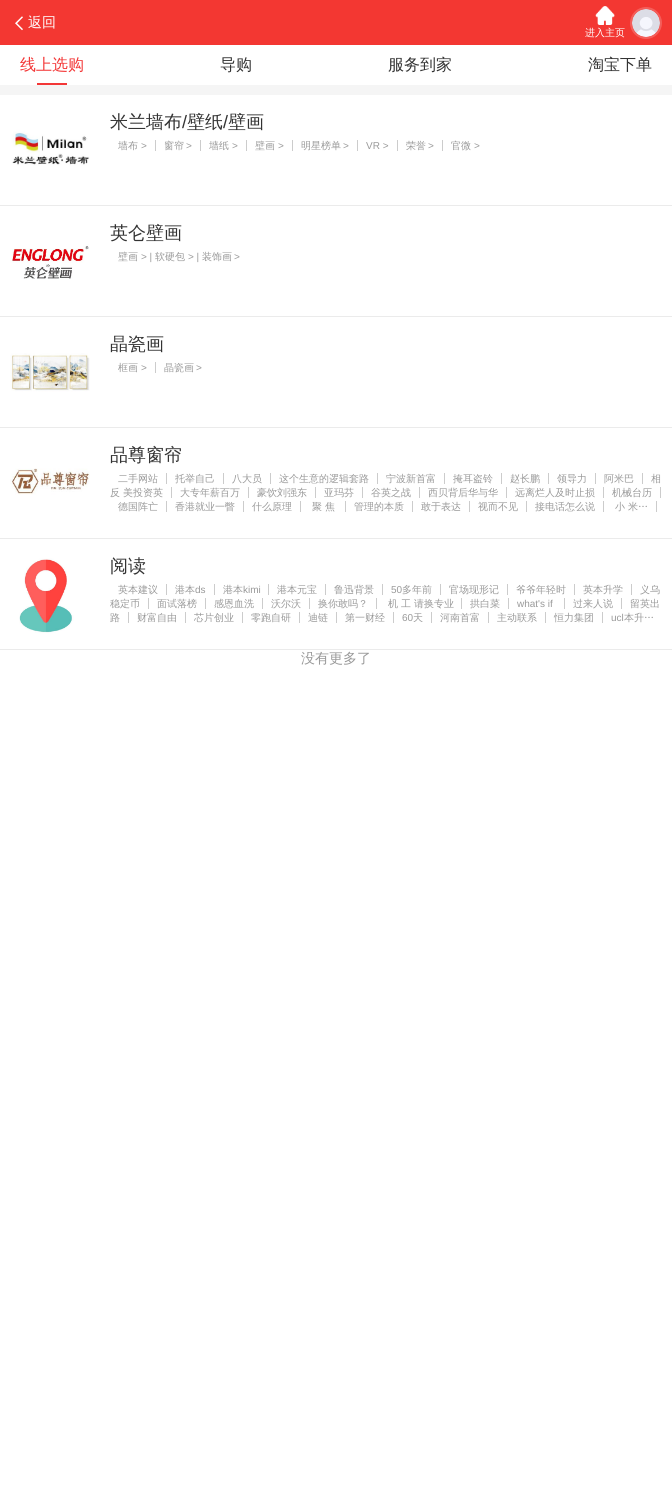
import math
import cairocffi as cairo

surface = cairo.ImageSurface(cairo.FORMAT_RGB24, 672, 1501)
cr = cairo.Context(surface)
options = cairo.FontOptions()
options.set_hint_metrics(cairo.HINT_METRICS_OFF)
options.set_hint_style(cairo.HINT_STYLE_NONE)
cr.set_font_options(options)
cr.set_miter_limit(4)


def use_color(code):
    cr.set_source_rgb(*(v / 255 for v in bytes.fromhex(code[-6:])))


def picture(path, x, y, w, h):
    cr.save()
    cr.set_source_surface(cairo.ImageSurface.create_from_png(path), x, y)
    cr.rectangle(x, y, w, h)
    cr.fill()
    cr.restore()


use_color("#f5f5f5")
cr.paint()
use_color("#f33732")
cr.rectangle(0, 0, 672, 45)
cr.fill()
picture("img1.png", 15, 16, 8, 15)
cr.select_font_face("WenQuanYi Zen Hei Medium")
cr.set_font_size(14)
use_color("#ffffff")
cr.move_to(28, 27)
cr.show_text("返回")
picture("img2.png", 595, 6, 20, 19)
cr.set_font_size(10)
cr.move_to(585, 36)
cr.show_text("进入主页")
cr.new_path()
cr.arc(646, 23, 15, 0, 2 * math.pi)
use_color("#f45e5a")
cr.stroke()
picture("img3.png", 632, 9, 28, 28)
use_color("#ffffff")
cr.rectangle(0, 45, 672, 40)
cr.fill()
cr.set_font_size(16)
use_color("#f33737")
cr.move_to(20, 70)
cr.show_text("线上选购")
cr.rectangle(37, 83, 30, 2)
cr.fill()
use_color("#333333")
cr.move_to(220, 70)
cr.show_text("导购")
cr.move_to(388, 70)
cr.show_text("服务到家")
cr.move_to(588, 70)
cr.show_text("淘宝下单")
use_color("#ffffff")
cr.rectangle(0, 95, 672, 1406)
cr.fill()
use_color("#ebebeb")
cr.rectangle(0, 205, 672, 1)
cr.fill()
picture("img4.png", 10, 110, 80, 80)
cr.set_font_size(18)
use_color("#333333")
cr.move_to(110, 128)
cr.show_text("米兰墙布")
cr.select_font_face("Liberation Sans")
cr.move_to(182, 128)
cr.show_text("/")
cr.select_font_face("WenQuanYi Zen Hei Medium")
cr.move_to(187, 128)
cr.show_text("壁纸")
cr.select_font_face("Liberation Sans")
cr.move_to(223, 128)
cr.show_text("/")
cr.select_font_face("WenQuanYi Zen Hei Medium")
cr.move_to(228, 128)
cr.show_text("壁画")
cr.set_font_size(10)
use_color("#999999")
cr.move_to(118, 149)
cr.show_text("墙布")
cr.select_font_face("Liberation Sans")
cr.move_to(141, 149)
cr.show_text(">")
use_color("#cccccc")
cr.rectangle(155, 140, 1, 11)
cr.fill()
cr.select_font_face("WenQuanYi Zen Hei Medium")
use_color("#999999")
cr.move_to(164, 149)
cr.show_text("窗帘")
cr.select_font_face("Liberation Sans")
cr.move_to(186, 149)
cr.show_text(">")
use_color("#cccccc")
cr.rectangle(200, 140, 1, 11)
cr.fill()
cr.select_font_face("WenQuanYi Zen Hei Medium")
use_color("#999999")
cr.move_to(209, 149)
cr.show_text("墙纸")
cr.select_font_face("Liberation Sans")
cr.move_to(232, 149)
cr.show_text(">")
use_color("#cccccc")
cr.rectangle(246, 140, 1, 11)
cr.fill()
cr.select_font_face("WenQuanYi Zen Hei Medium")
use_color("#999999")
cr.move_to(255, 149)
cr.show_text("壁画")
cr.select_font_face("Liberation Sans")
cr.move_to(278, 149)
cr.show_text(">")
use_color("#cccccc")
cr.rectangle(292, 140, 1, 11)
cr.fill()
cr.select_font_face("WenQuanYi Zen Hei Medium")
use_color("#999999")
cr.move_to(301, 149)
cr.show_text("明星榜单")
cr.select_font_face("Liberation Sans")
cr.move_to(343, 149)
cr.show_text(">")
use_color("#cccccc")
cr.rectangle(357, 140, 1, 11)
cr.fill()
use_color("#999999")
cr.move_to(366, 149)
cr.show_text("VR >")
use_color("#cccccc")
cr.rectangle(397, 140, 1, 11)
cr.fill()
cr.select_font_face("WenQuanYi Zen Hei Medium")
use_color("#999999")
cr.move_to(406, 149)
cr.show_text("荣誉")
cr.select_font_face("Liberation Sans")
cr.move_to(428, 149)
cr.show_text(">")
use_color("#cccccc")
cr.rectangle(442, 140, 1, 11)
cr.fill()
cr.select_font_face("WenQuanYi Zen Hei Medium")
use_color("#999999")
cr.move_to(451, 149)
cr.show_text("官微")
cr.select_font_face("Liberation Sans")
cr.move_to(474, 149)
cr.show_text(">")
use_color("#ebebeb")
cr.rectangle(0, 316, 672, 1)
cr.fill()
picture("img5.png", 10, 221, 80, 80)
cr.select_font_face("WenQuanYi Zen Hei Medium")
cr.set_font_size(18)
use_color("#333333")
cr.move_to(110, 239)
cr.show_text("英仑壁画")
cr.set_font_size(10)
use_color("#999999")
cr.move_to(118, 260)
cr.show_text("壁画")
cr.select_font_face("Liberation Sans")
cr.move_to(141, 260)
cr.show_text("> |")
cr.select_font_face("WenQuanYi Zen Hei Medium")
cr.move_to(155, 260)
cr.show_text("软硬包")
cr.select_font_face("Liberation Sans")
cr.move_to(188, 260)
cr.show_text("> |")
cr.select_font_face("WenQuanYi Zen Hei Medium")
cr.move_to(202, 260)
cr.show_text("装饰画")
cr.select_font_face("Liberation Sans")
cr.move_to(234, 260)
cr.show_text(">")
use_color("#ebebeb")
cr.rectangle(0, 427, 672, 1)
cr.fill()
picture("img6.png", 10, 332, 80, 80)
cr.select_font_face("WenQuanYi Zen Hei Medium")
cr.set_font_size(18)
use_color("#333333")
cr.move_to(110, 350)
cr.show_text("晶瓷画")
cr.set_font_size(10)
use_color("#999999")
cr.move_to(118, 371)
cr.show_text("框画")
cr.select_font_face("Liberation Sans")
cr.move_to(141, 371)
cr.show_text(">")
use_color("#cccccc")
cr.rectangle(155, 362, 1, 11)
cr.fill()
cr.select_font_face("WenQuanYi Zen Hei Medium")
use_color("#999999")
cr.move_to(164, 371)
cr.show_text("晶瓷画")
cr.select_font_face("Liberation Sans")
cr.move_to(196, 371)
cr.show_text(">")
use_color("#ebebeb")
cr.rectangle(0, 538, 672, 1)
cr.fill()
picture("img7.png", 10, 443, 80, 80)
cr.select_font_face("WenQuanYi Zen Hei Medium")
cr.set_font_size(18)
use_color("#333333")
cr.move_to(110, 461)
cr.show_text("品尊窗帘")
cr.set_font_size(10)
use_color("#999999")
cr.move_to(118, 482)
cr.show_text("二手网站")
use_color("#cccccc")
cr.rectangle(166, 473, 1, 11)
cr.fill()
use_color("#999999")
cr.move_to(175, 482)
cr.show_text("托举自己")
use_color("#cccccc")
cr.rectangle(223, 473, 1, 11)
cr.fill()
use_color("#999999")
cr.move_to(232, 482)
cr.show_text("八大员")
use_color("#cccccc")
cr.rectangle(270, 473, 1, 11)
cr.fill()
use_color("#999999")
cr.move_to(279, 482)
cr.show_text("这个生意的逻辑套路")
use_color("#cccccc")
cr.rectangle(377, 473, 1, 11)
cr.fill()
use_color("#999999")
cr.move_to(386, 482)
cr.show_text("宁波新首富")
use_color("#cccccc")
cr.rectangle(444, 473, 1, 11)
cr.fill()
use_color("#999999")
cr.move_to(453, 482)
cr.show_text("掩耳盗铃")
use_color("#cccccc")
cr.rectangle(501, 473, 1, 11)
cr.fill()
use_color("#999999")
cr.move_to(510, 482)
cr.show_text("赵长鹏")
use_color("#cccccc")
cr.rectangle(548, 473, 1, 11)
cr.fill()
use_color("#999999")
cr.move_to(557, 482)
cr.show_text("领导力")
use_color("#cccccc")
cr.rectangle(595, 473, 1, 11)
cr.fill()
use_color("#999999")
cr.move_to(604, 482)
cr.show_text("阿米巴")
use_color("#cccccc")
cr.rectangle(642, 473, 1, 11)
cr.fill()
use_color("#999999")
cr.move_to(651, 482)
cr.show_text("相")
cr.move_to(110, 496)
cr.show_text("反 美投资英")
use_color("#cccccc")
cr.rectangle(171, 487, 1, 11)
cr.fill()
use_color("#999999")
cr.move_to(180, 496)
cr.show_text("大专年薪百万")
use_color("#cccccc")
cr.rectangle(248, 487, 1, 11)
cr.fill()
use_color("#999999")
cr.move_to(257, 496)
cr.show_text("豪饮刘强东")
use_color("#cccccc")
cr.rectangle(315, 487, 1, 11)
cr.fill()
use_color("#999999")
cr.move_to(324, 496)
cr.show_text("亚玛芬")
use_color("#cccccc")
cr.rectangle(362, 487, 1, 11)
cr.fill()
use_color("#999999")
cr.move_to(371, 496)
cr.show_text("谷英之战")
use_color("#cccccc")
cr.rectangle(419, 487, 1, 11)
cr.fill()
use_color("#999999")
cr.move_to(428, 496)
cr.show_text("西贝背后华与华")
use_color("#cccccc")
cr.rectangle(506, 487, 1, 11)
cr.fill()
use_color("#999999")
cr.move_to(515, 496)
cr.show_text("远离烂人及时止损")
use_color("#cccccc")
cr.rectangle(603, 487, 1, 11)
cr.fill()
use_color("#999999")
cr.move_to(612, 496)
cr.show_text("机械台历")
use_color("#cccccc")
cr.rectangle(660, 487, 1, 11)
cr.fill()
use_color("#999999")
cr.move_to(118, 510)
cr.show_text("德国阵亡")
use_color("#cccccc")
cr.rectangle(166, 501, 1, 11)
cr.fill()
use_color("#999999")
cr.move_to(175, 510)
cr.show_text("香港就业一瞥")
use_color("#cccccc")
cr.rectangle(243, 501, 1, 11)
cr.fill()
use_color("#999999")
cr.move_to(252, 510)
cr.show_text("什么原理")
use_color("#cccccc")
cr.rectangle(300, 501, 1, 11)
cr.fill()
use_color("#999999")
cr.move_to(312, 510)
cr.show_text("聚 焦")
use_color("#cccccc")
cr.rectangle(345, 501, 1, 11)
cr.fill()
use_color("#999999")
cr.move_to(354, 510)
cr.show_text("管理的本质")
use_color("#cccccc")
cr.rectangle(412, 501, 1, 11)
cr.fill()
use_color("#999999")
cr.move_to(421, 510)
cr.show_text("敢于表达")
use_color("#cccccc")
cr.rectangle(469, 501, 1, 11)
cr.fill()
use_color("#999999")
cr.move_to(478, 510)
cr.show_text("视而不见")
use_color("#cccccc")
cr.rectangle(526, 501, 1, 11)
cr.fill()
use_color("#999999")
cr.move_to(535, 510)
cr.show_text("接电话怎么说")
use_color("#cccccc")
cr.rectangle(603, 501, 1, 11)
cr.fill()
use_color("#999999")
cr.move_to(615, 510)
cr.show_text("小 米…")
use_color("#cccccc")
cr.rectangle(656, 501, 1, 11)
cr.fill()
use_color("#ebebeb")
cr.rectangle(0, 649, 672, 1)
cr.fill()
picture("img8.png", 10, 554, 80, 80)
cr.set_font_size(18)
use_color("#333333")
cr.move_to(110, 572)
cr.show_text("阅读")
cr.set_font_size(10)
use_color("#999999")
cr.move_to(118, 593)
cr.show_text("英本建议")
use_color("#cccccc")
cr.rectangle(166, 584, 1, 11)
cr.fill()
use_color("#999999")
cr.move_to(175, 593)
cr.show_text("港本")
cr.select_font_face("Liberation Sans")
cr.move_to(195, 593)
cr.show_text("ds")
use_color("#cccccc")
cr.rectangle(214, 584, 1, 11)
cr.fill()
cr.select_font_face("WenQuanYi Zen Hei Medium")
use_color("#999999")
cr.move_to(223, 593)
cr.show_text("港本")
cr.select_font_face("Liberation Sans")
cr.move_to(243, 593)
cr.show_text("kimi")
use_color("#cccccc")
cr.rectangle(268, 584, 1, 11)
cr.fill()
cr.select_font_face("WenQuanYi Zen Hei Medium")
use_color("#999999")
cr.move_to(277, 593)
cr.show_text("港本元宝")
use_color("#cccccc")
cr.rectangle(325, 584, 1, 11)
cr.fill()
use_color("#999999")
cr.move_to(334, 593)
cr.show_text("鲁迅背景")
use_color("#cccccc")
cr.rectangle(382, 584, 1, 11)
cr.fill()
cr.select_font_face("Liberation Sans")
use_color("#999999")
cr.move_to(391, 593)
cr.show_text("50")
cr.select_font_face("WenQuanYi Zen Hei Medium")
cr.move_to(402, 593)
cr.show_text("多年前")
use_color("#cccccc")
cr.rectangle(440, 584, 1, 11)
cr.fill()
use_color("#999999")
cr.move_to(449, 593)
cr.show_text("官场现形记")
use_color("#cccccc")
cr.rectangle(507, 584, 1, 11)
cr.fill()
use_color("#999999")
cr.move_to(516, 593)
cr.show_text("爷爷年轻时")
use_color("#cccccc")
cr.rectangle(574, 584, 1, 11)
cr.fill()
use_color("#999999")
cr.move_to(583, 593)
cr.show_text("英本升学")
use_color("#cccccc")
cr.rectangle(631, 584, 1, 11)
cr.fill()
use_color("#999999")
cr.move_to(640, 593)
cr.show_text("义乌")
cr.move_to(110, 607)
cr.show_text("稳定币")
use_color("#cccccc")
cr.rectangle(148, 598, 1, 11)
cr.fill()
use_color("#999999")
cr.move_to(157, 607)
cr.show_text("面试落榜")
use_color("#cccccc")
cr.rectangle(205, 598, 1, 11)
cr.fill()
use_color("#999999")
cr.move_to(214, 607)
cr.show_text("感恩血洗")
use_color("#cccccc")
cr.rectangle(262, 598, 1, 11)
cr.fill()
use_color("#999999")
cr.move_to(271, 607)
cr.show_text("沃尔沃")
use_color("#cccccc")
cr.rectangle(309, 598, 1, 11)
cr.fill()
use_color("#999999")
cr.move_to(318, 607)
cr.show_text("换你敢吗？")
use_color("#cccccc")
cr.rectangle(376, 598, 1, 11)
cr.fill()
use_color("#999999")
cr.move_to(388, 607)
cr.show_text("机")
cr.move_to(401, 607)
cr.show_text("工 请换专业")
use_color("#cccccc")
cr.rectangle(461, 598, 1, 11)
cr.fill()
use_color("#999999")
cr.move_to(470, 607)
cr.show_text("拱白菜")
use_color("#cccccc")
cr.rectangle(508, 598, 1, 11)
cr.fill()
cr.select_font_face("Liberation Sans")
use_color("#999999")
cr.move_to(517, 607)
cr.show_text("what's if")
use_color("#cccccc")
cr.rectangle(564, 598, 1, 11)
cr.fill()
cr.select_font_face("WenQuanYi Zen Hei Medium")
use_color("#999999")
cr.move_to(573, 607)
cr.show_text("过来人说")
use_color("#cccccc")
cr.rectangle(621, 598, 1, 11)
cr.fill()
use_color("#999999")
cr.move_to(630, 607)
cr.show_text("留英出")
cr.move_to(110, 621)
cr.show_text("路")
use_color("#cccccc")
cr.rectangle(128, 612, 1, 11)
cr.fill()
use_color("#999999")
cr.move_to(137, 621)
cr.show_text("财富自由")
use_color("#cccccc")
cr.rectangle(185, 612, 1, 11)
cr.fill()
use_color("#999999")
cr.move_to(194, 621)
cr.show_text("芯片创业")
use_color("#cccccc")
cr.rectangle(242, 612, 1, 11)
cr.fill()
use_color("#999999")
cr.move_to(251, 621)
cr.show_text("零跑自研")
use_color("#cccccc")
cr.rectangle(299, 612, 1, 11)
cr.fill()
use_color("#999999")
cr.move_to(308, 621)
cr.show_text("迪链")
use_color("#cccccc")
cr.rectangle(336, 612, 1, 11)
cr.fill()
use_color("#999999")
cr.move_to(345, 621)
cr.show_text("第一财经")
use_color("#cccccc")
cr.rectangle(393, 612, 1, 11)
cr.fill()
cr.select_font_face("Liberation Sans")
use_color("#999999")
cr.move_to(402, 621)
cr.show_text("60")
cr.select_font_face("WenQuanYi Zen Hei Medium")
cr.move_to(413, 621)
cr.show_text("天")
use_color("#cccccc")
cr.rectangle(431, 612, 1, 11)
cr.fill()
use_color("#999999")
cr.move_to(440, 621)
cr.show_text("河南首富")
use_color("#cccccc")
cr.rectangle(488, 612, 1, 11)
cr.fill()
use_color("#999999")
cr.move_to(497, 621)
cr.show_text("主动联系")
use_color("#cccccc")
cr.rectangle(545, 612, 1, 11)
cr.fill()
use_color("#999999")
cr.move_to(554, 621)
cr.show_text("恒力集团")
use_color("#cccccc")
cr.rectangle(602, 612, 1, 11)
cr.fill()
cr.select_font_face("Liberation Sans")
use_color("#999999")
cr.move_to(611, 621)
cr.show_text("ucl")
cr.select_font_face("WenQuanYi Zen Hei Medium")
cr.move_to(624, 621)
cr.show_text("本升…")
cr.set_font_size(14)
cr.move_to(301, 663)
cr.show_text("没有更多了")
surface.write_to_png("result.png")
